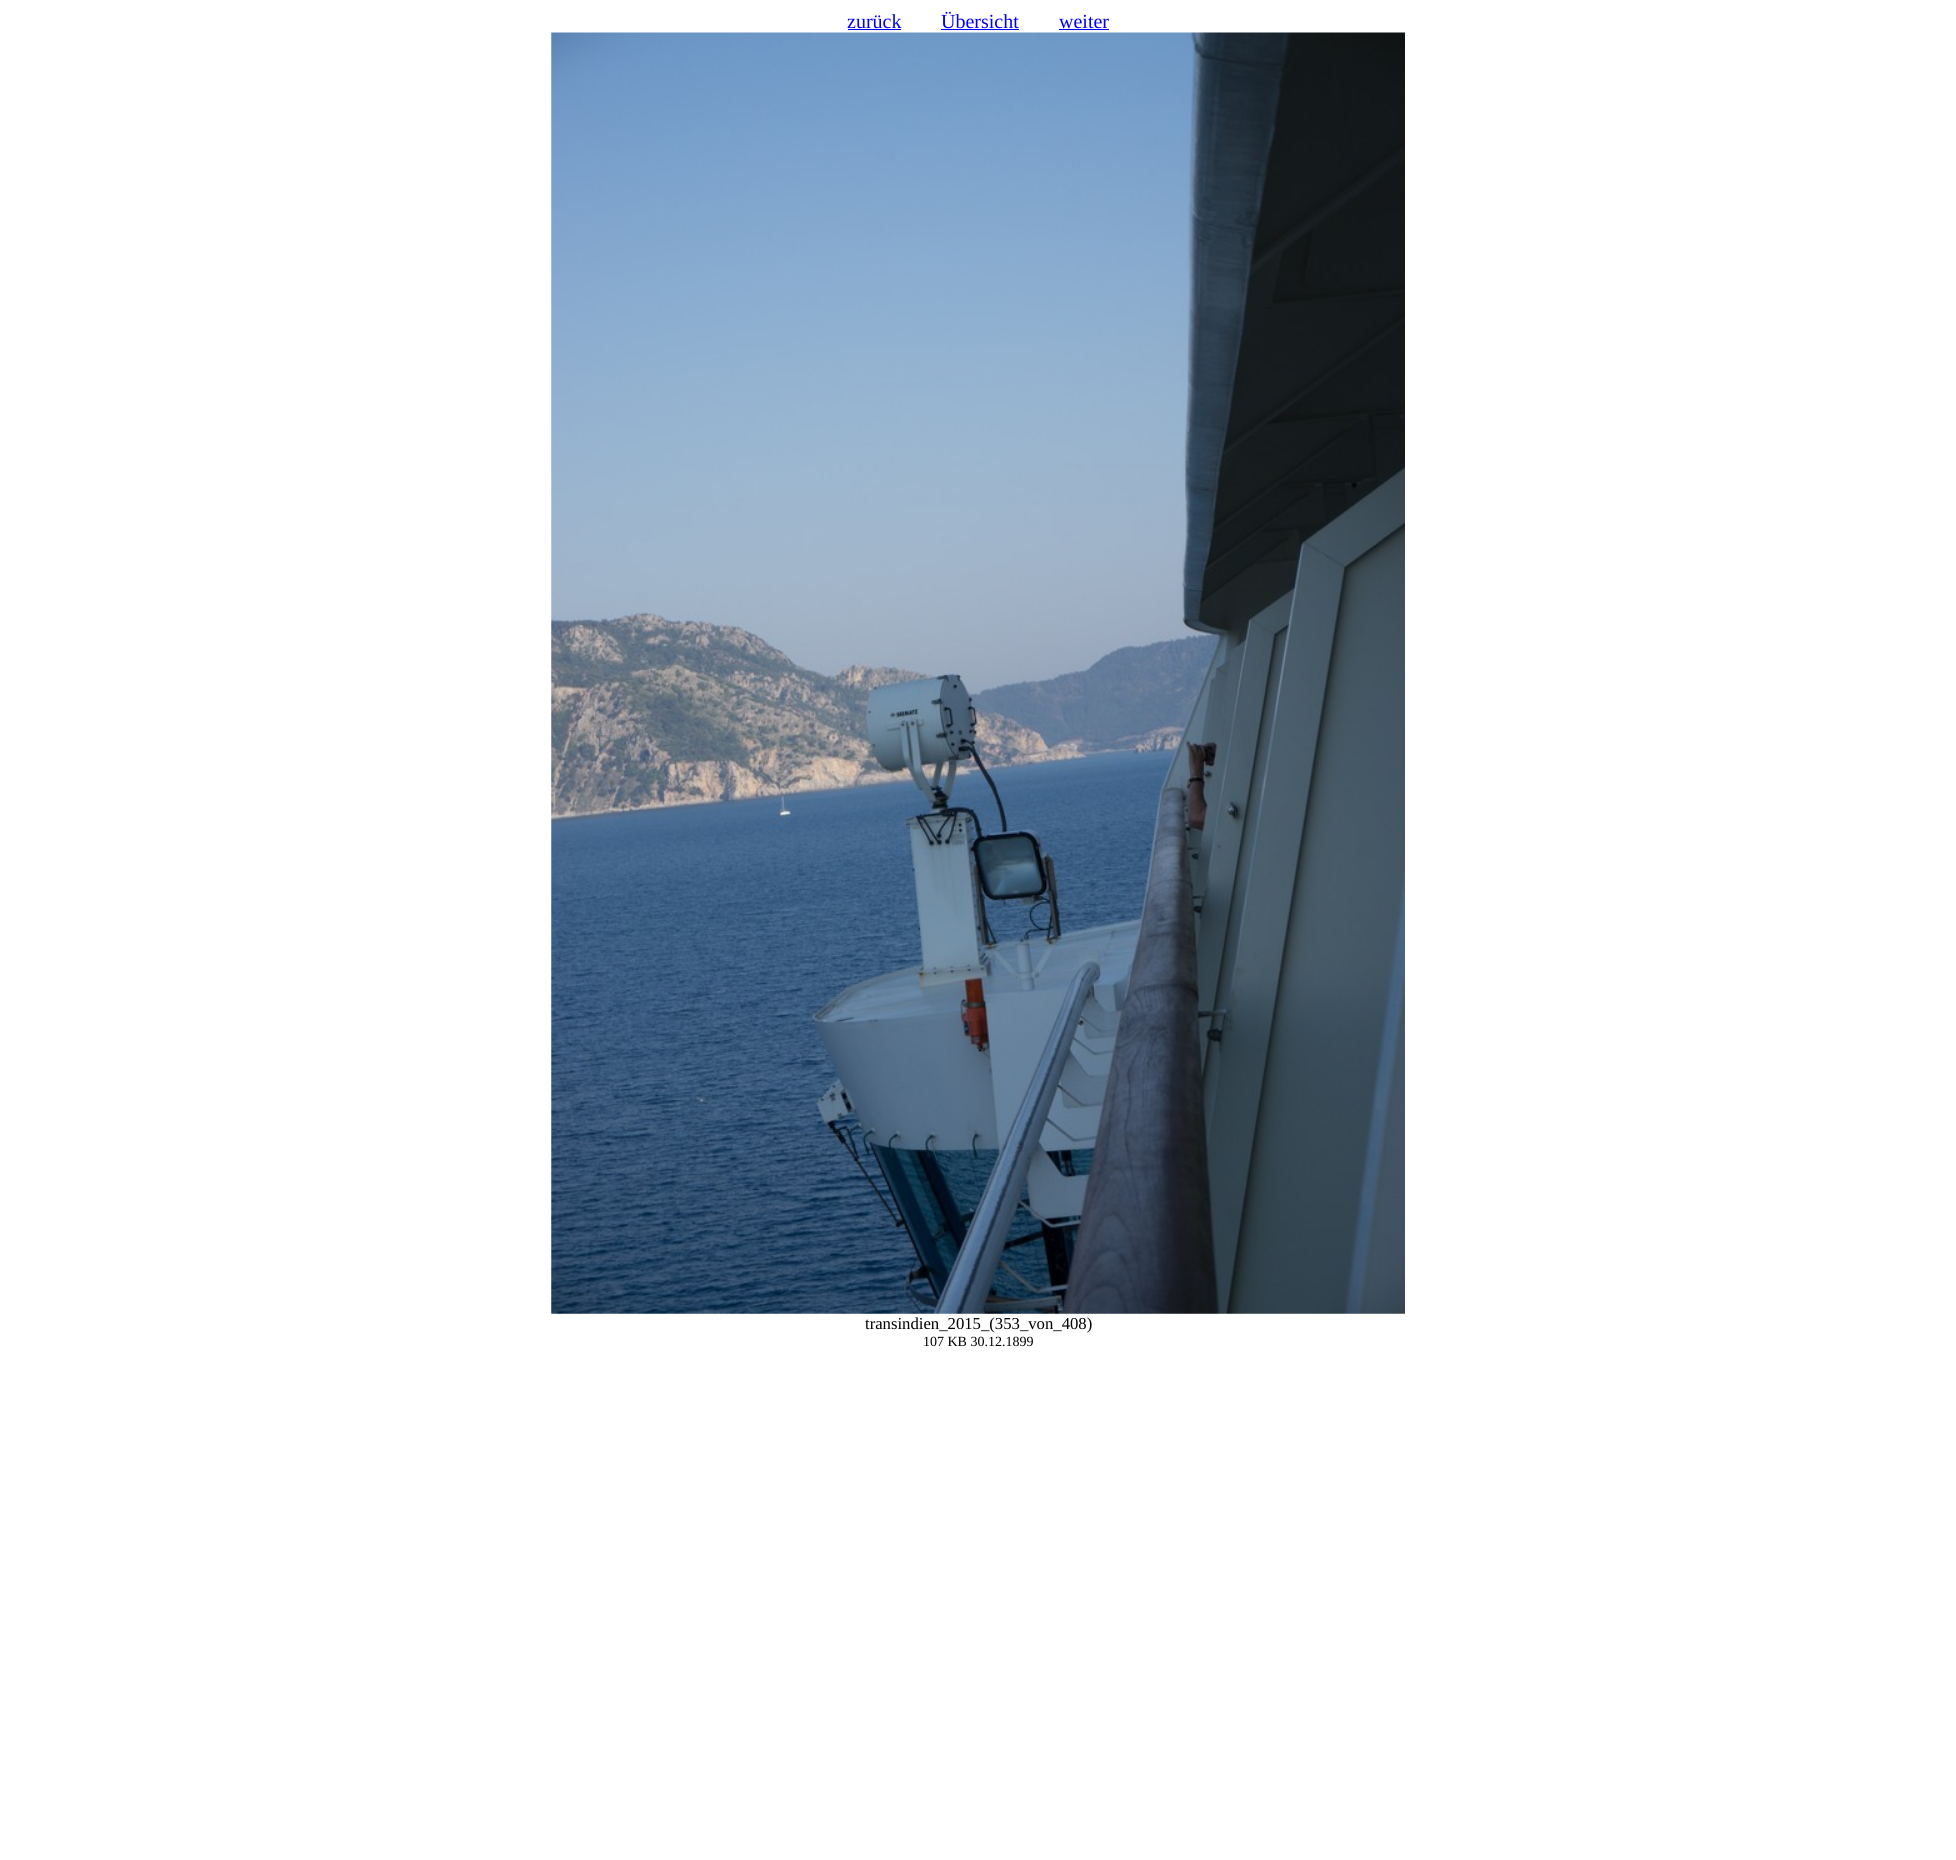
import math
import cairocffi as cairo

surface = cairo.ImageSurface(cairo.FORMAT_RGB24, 1956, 1860)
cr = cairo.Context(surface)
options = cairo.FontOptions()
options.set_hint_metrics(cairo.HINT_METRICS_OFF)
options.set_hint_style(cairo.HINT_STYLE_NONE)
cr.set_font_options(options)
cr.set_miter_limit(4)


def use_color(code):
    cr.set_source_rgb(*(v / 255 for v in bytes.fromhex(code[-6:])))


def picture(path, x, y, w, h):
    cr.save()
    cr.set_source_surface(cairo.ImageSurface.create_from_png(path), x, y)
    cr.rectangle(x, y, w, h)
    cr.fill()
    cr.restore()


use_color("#ffffff")
cr.paint()
cr.select_font_face("Liberation Serif")
cr.set_font_size(20)
use_color("#0000ff")
cr.move_to(847, 28)
cr.show_text("zurück")
cr.rectangle(848, 29, 53, 1)
cr.fill()
cr.move_to(941, 28)
cr.show_text("Übersicht")
cr.rectangle(941, 29, 78, 1)
cr.fill()
cr.move_to(1059, 28)
cr.show_text("weiter")
cr.rectangle(1059, 29, 50, 1)
cr.fill()
picture("img1.png", 551, 32, 854, 1282)
cr.set_font_size(16.7)
use_color("#000000")
cr.move_to(865, 1329)
cr.show_text("transindien_2015_(353_von_408)")
cr.set_font_size(14)
cr.move_to(923, 1346)
cr.show_text("107 KB 30.12.1899")
surface.write_to_png("result.png")
